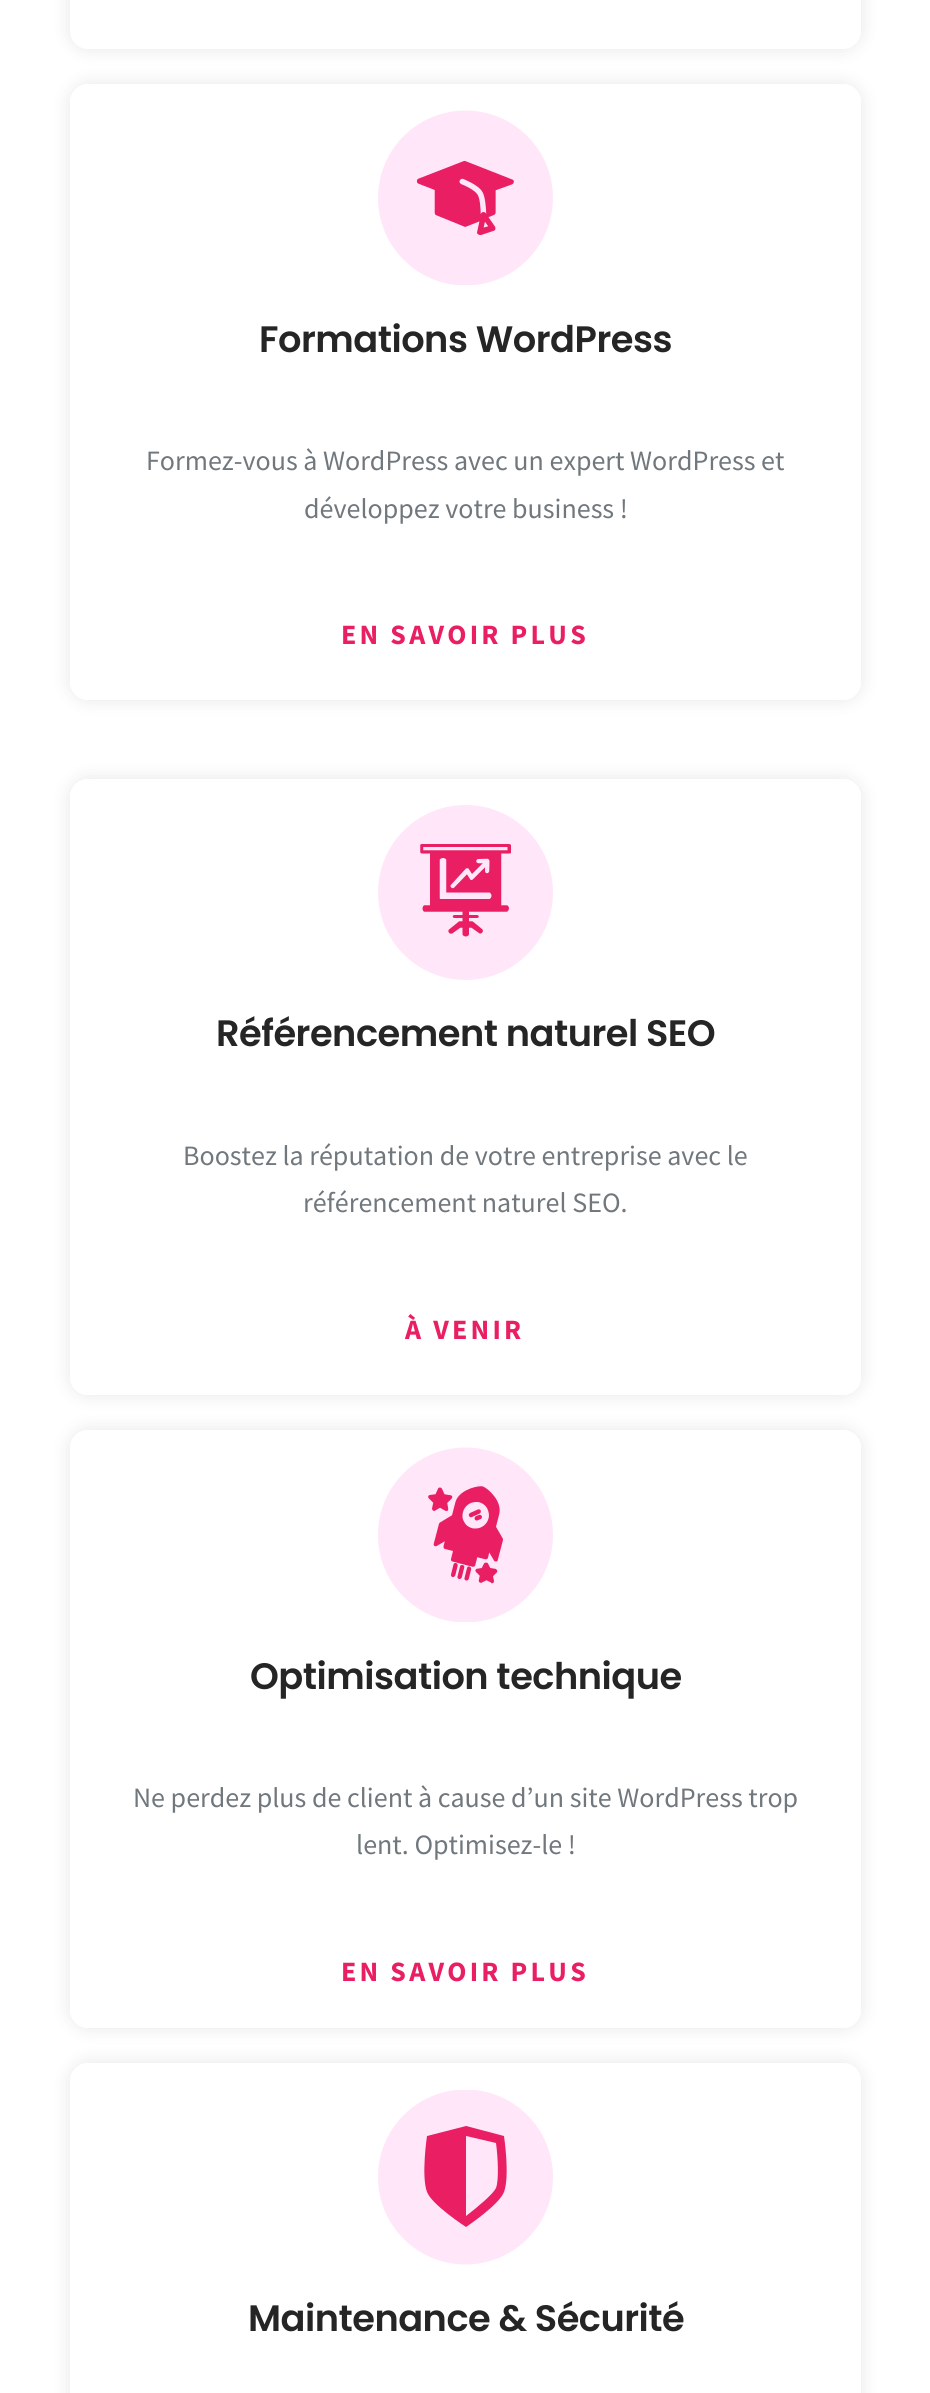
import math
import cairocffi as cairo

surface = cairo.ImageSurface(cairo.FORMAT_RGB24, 930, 2393)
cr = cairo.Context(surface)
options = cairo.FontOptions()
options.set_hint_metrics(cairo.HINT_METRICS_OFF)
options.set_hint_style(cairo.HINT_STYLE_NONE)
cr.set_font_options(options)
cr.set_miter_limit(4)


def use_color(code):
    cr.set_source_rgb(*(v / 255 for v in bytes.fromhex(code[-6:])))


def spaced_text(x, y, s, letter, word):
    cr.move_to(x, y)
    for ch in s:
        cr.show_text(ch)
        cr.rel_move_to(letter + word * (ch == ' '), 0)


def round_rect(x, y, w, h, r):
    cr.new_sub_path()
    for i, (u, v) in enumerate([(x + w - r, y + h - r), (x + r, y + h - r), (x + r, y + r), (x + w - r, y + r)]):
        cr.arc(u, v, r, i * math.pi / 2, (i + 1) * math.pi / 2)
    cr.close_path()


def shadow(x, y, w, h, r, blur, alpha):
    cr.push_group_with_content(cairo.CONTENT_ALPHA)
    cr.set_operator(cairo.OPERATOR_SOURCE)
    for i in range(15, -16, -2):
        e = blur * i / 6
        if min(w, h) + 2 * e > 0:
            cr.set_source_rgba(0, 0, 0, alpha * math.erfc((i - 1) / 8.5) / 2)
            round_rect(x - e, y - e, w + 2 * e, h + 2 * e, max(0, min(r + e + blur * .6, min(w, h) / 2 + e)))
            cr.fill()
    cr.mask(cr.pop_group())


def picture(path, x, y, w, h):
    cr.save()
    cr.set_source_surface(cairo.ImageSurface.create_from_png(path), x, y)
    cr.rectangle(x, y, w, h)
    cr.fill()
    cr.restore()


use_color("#ffffff")
cr.paint()
use_color("#000000")
shadow(70, -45, 791, 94, 18, 9, 0.1)
use_color("#ffffff")
round_rect(70, -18, 791, 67, 18)
cr.fill()
cr.save()
cr.set_fill_rule(cairo.FILL_RULE_EVEN_ODD)
cr.new_path()
cr.move_to(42, 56)
cr.line_to(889, 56)
cr.line_to(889, 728)
cr.line_to(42, 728)
cr.close_path()
cr.move_to(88, 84)
cr.line_to(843, 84)
cr.curve_to(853, 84, 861, 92, 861, 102)
cr.line_to(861, 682)
cr.curve_to(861, 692, 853, 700, 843, 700)
cr.line_to(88, 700)
cr.curve_to(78, 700, 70, 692, 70, 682)
cr.line_to(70, 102)
cr.curve_to(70, 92, 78, 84, 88, 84)
cr.close_path()
cr.clip()
use_color("#000000")
shadow(70, 84, 791, 616, 18, 9, 0.1)
cr.restore()
picture("img1.png", 378, 110, 175, 175)
cr.select_font_face("Poppins SemiBold")
cr.set_font_size(36.75)
use_color("#252525")
spaced_text(259, 352, "Formations WordPress", -0.5, 0)
cr.select_font_face("Source Sans Pro")
cr.set_font_size(28)
use_color("#71787d")
cr.move_to(146, 470)
cr.show_text("Formez-vous à WordPress avec un expert WordPress et")
cr.move_to(304, 518)
cr.show_text("développez votre business !")
cr.select_font_face("Source Sans Pro", cairo.FONT_SLANT_NORMAL, cairo.FONT_WEIGHT_BOLD)
use_color("#e91e63")
spaced_text(341, 644, "EN SAVOIR PLUS", 3.25, 0)
cr.save()
cr.set_fill_rule(cairo.FILL_RULE_EVEN_ODD)
cr.new_path()
cr.move_to(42, 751)
cr.line_to(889, 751)
cr.line_to(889, 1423)
cr.line_to(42, 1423)
cr.close_path()
cr.move_to(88, 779)
cr.line_to(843, 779)
cr.curve_to(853, 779, 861, 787, 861, 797)
cr.line_to(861, 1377)
cr.curve_to(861, 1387, 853, 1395, 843, 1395)
cr.line_to(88, 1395)
cr.curve_to(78, 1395, 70, 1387, 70, 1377)
cr.line_to(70, 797)
cr.curve_to(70, 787, 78, 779, 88, 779)
cr.close_path()
cr.clip()
use_color("#000000")
shadow(70, 779, 791, 616, 18, 9, 0.1)
cr.restore()
picture("img2.png", 378, 805, 175, 175)
cr.select_font_face("Poppins SemiBold")
cr.set_font_size(36.75)
use_color("#252525")
spaced_text(216, 1046, "Référencement naturel SEO", -0.5, 0)
cr.select_font_face("Source Sans Pro")
cr.set_font_size(28)
use_color("#71787d")
cr.move_to(183, 1165)
cr.show_text("Boostez la réputation de votre entreprise avec le")
cr.move_to(303, 1212)
cr.show_text("référencement naturel SEO.")
cr.select_font_face("Source Sans Pro", cairo.FONT_SLANT_NORMAL, cairo.FONT_WEIGHT_BOLD)
use_color("#e91e63")
spaced_text(405, 1339, "À VENIR", 3.25, 0)
cr.save()
cr.set_fill_rule(cairo.FILL_RULE_EVEN_ODD)
cr.new_path()
cr.move_to(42, 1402)
cr.line_to(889, 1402)
cr.line_to(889, 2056)
cr.line_to(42, 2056)
cr.close_path()
cr.move_to(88, 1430)
cr.line_to(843, 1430)
cr.curve_to(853, 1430, 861, 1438, 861, 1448)
cr.line_to(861, 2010)
cr.curve_to(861, 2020, 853, 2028, 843, 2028)
cr.line_to(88, 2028)
cr.curve_to(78, 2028, 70, 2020, 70, 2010)
cr.line_to(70, 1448)
cr.curve_to(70, 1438, 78, 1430, 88, 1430)
cr.close_path()
cr.clip()
use_color("#000000")
shadow(70, 1430, 791, 598, 18, 9, 0.1)
cr.restore()
picture("img3.png", 378, 1447, 175, 175)
cr.select_font_face("Poppins SemiBold")
cr.set_font_size(36.75)
use_color("#252525")
spaced_text(250, 1689, "Optimisation technique", -0.5, 0)
cr.select_font_face("Source Sans Pro")
cr.set_font_size(28)
use_color("#71787d")
cr.move_to(133, 1807)
cr.show_text("Ne perdez plus de client à cause d’un site WordPress trop")
cr.move_to(356, 1854)
cr.show_text("lent. Optimisez-le !")
cr.select_font_face("Source Sans Pro", cairo.FONT_SLANT_NORMAL, cairo.FONT_WEIGHT_BOLD)
use_color("#e91e63")
spaced_text(341, 1981, "EN SAVOIR PLUS", 3.25, 0)
cr.save()
cr.set_fill_rule(cairo.FILL_RULE_EVEN_ODD)
cr.new_path()
cr.move_to(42, 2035)
cr.line_to(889, 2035)
cr.line_to(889, 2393)
cr.line_to(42, 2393)
cr.close_path()
cr.move_to(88, 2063)
cr.line_to(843, 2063)
cr.curve_to(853, 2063, 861, 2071, 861, 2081)
cr.line_to(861, 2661)
cr.curve_to(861, 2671, 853, 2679, 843, 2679)
cr.line_to(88, 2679)
cr.curve_to(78, 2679, 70, 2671, 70, 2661)
cr.line_to(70, 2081)
cr.curve_to(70, 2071, 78, 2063, 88, 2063)
cr.close_path()
cr.clip()
use_color("#000000")
shadow(70, 2063, 791, 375, 18, 9, 0.1)
cr.restore()
cr.save()
cr.rectangle(378, 2090, 175, 175)
cr.clip()
use_color("#ffe7f9")
cr.arc(465.5, 2177, 87.5, 0, 2 * math.pi)
cr.fill()
cr.restore()
cr.new_path()
cr.move_to(466, 2136)
cr.line_to(496, 2143)
cr.curve_to(498, 2158, 499, 2180, 496, 2188)
cr.curve_to(493, 2194, 479, 2206, 466, 2216)
cr.close_path()
cr.move_to(466, 2126)
cr.line_to(427, 2136)
cr.curve_to(427, 2136, 421, 2176, 427, 2192)
cr.curve_to(432, 2205, 466, 2227, 466, 2227)
cr.curve_to(466, 2227, 499, 2205, 504, 2192)
cr.curve_to(510, 2176, 504, 2136, 504, 2136)
cr.close_path()
cr.fill()
cr.select_font_face("Poppins SemiBold")
cr.set_font_size(36.75)
use_color("#252525")
spaced_text(248, 2331, "Maintenance & Sécurité", -0.5, 0)
surface.write_to_png("result.png")
